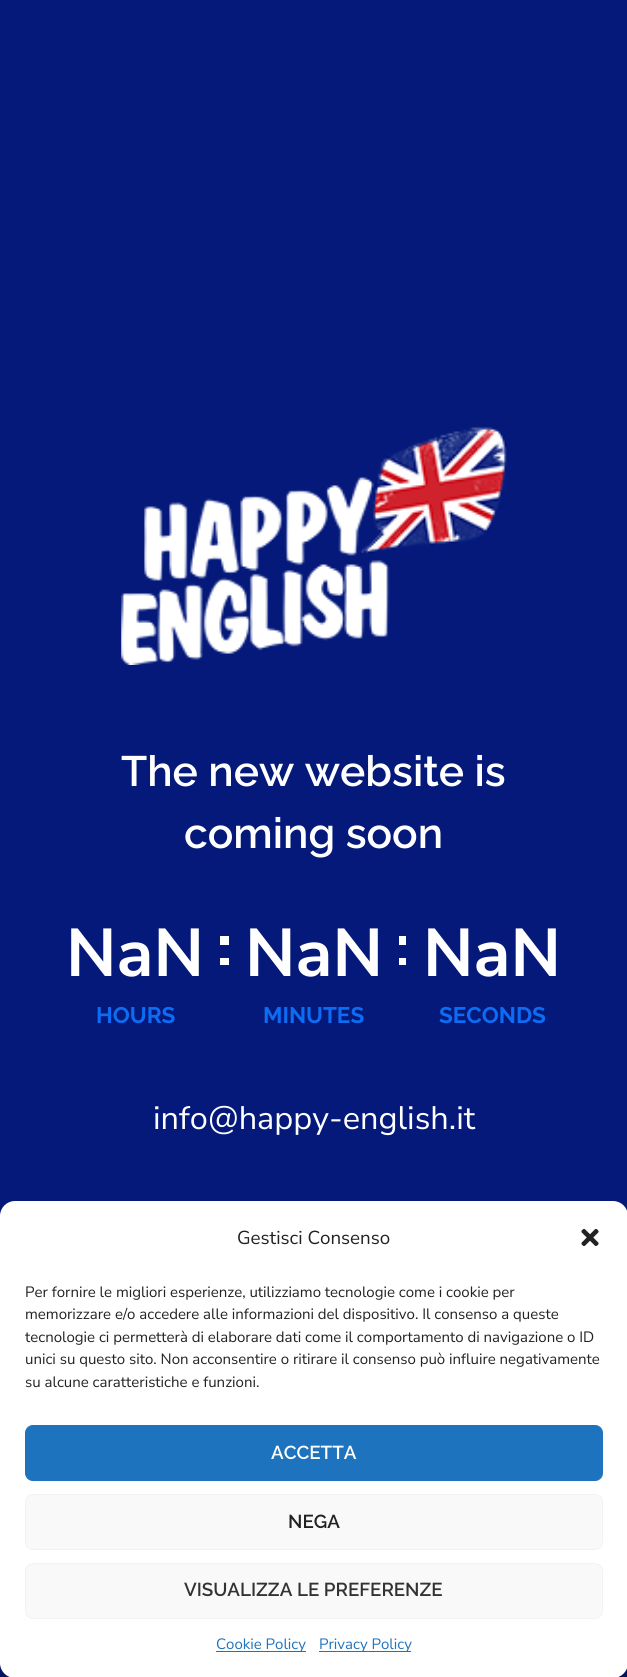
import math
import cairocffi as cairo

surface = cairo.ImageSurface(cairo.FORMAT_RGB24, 627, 1677)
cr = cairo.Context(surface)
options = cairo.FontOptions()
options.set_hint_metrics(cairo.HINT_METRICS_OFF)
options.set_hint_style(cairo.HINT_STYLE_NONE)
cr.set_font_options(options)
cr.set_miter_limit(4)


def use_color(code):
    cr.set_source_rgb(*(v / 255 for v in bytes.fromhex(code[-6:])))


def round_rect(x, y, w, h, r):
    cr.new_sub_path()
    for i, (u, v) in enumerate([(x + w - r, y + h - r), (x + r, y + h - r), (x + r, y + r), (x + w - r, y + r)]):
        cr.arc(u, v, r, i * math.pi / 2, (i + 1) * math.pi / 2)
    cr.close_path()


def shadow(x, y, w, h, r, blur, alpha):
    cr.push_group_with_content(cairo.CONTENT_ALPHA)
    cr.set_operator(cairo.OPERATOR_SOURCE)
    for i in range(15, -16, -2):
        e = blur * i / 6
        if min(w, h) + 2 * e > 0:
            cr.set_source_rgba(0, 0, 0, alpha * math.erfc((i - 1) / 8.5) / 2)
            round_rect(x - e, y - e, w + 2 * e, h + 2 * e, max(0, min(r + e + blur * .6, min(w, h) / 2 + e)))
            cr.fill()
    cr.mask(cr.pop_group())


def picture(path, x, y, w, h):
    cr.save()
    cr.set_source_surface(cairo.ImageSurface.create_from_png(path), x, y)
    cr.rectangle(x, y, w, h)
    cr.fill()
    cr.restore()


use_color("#04197a")
cr.paint()
picture("img1.png", 121, 427, 386, 238)
cr.select_font_face("Raleway SemiBold")
cr.set_font_size(42.5)
use_color("#ffffff")
cr.move_to(121, 786)
cr.show_text("The new website is")
cr.move_to(184, 848)
cr.show_text("coming soon")
cr.select_font_face("Nunito Sans", cairo.FONT_SLANT_NORMAL, cairo.FONT_WEIGHT_BOLD)
cr.set_font_size(67.5)
cr.move_to(66, 976)
cr.show_text("NaN")
use_color("#feffff")
cr.rectangle(220, 936, 9, 9)
cr.fill()
cr.rectangle(220, 958, 9, 7)
cr.fill()
cr.select_font_face("Raleway", cairo.FONT_SLANT_NORMAL, cairo.FONT_WEIGHT_BOLD)
cr.set_font_size(22.5)
use_color("#0d6cf4")
cr.move_to(96, 1023)
cr.show_text("HOURS")
cr.select_font_face("Nunito Sans", cairo.FONT_SLANT_NORMAL, cairo.FONT_WEIGHT_BOLD)
cr.set_font_size(67.5)
use_color("#ffffff")
cr.move_to(245, 976)
cr.show_text("NaN")
use_color("#feffff")
cr.rectangle(399, 936, 7, 9)
cr.fill()
cr.rectangle(399, 958, 7, 7)
cr.fill()
cr.select_font_face("Raleway", cairo.FONT_SLANT_NORMAL, cairo.FONT_WEIGHT_BOLD)
cr.set_font_size(22.5)
use_color("#0d6cf4")
cr.move_to(263, 1023)
cr.show_text("MINUTES")
cr.select_font_face("Nunito Sans", cairo.FONT_SLANT_NORMAL, cairo.FONT_WEIGHT_BOLD)
cr.set_font_size(67.5)
use_color("#ffffff")
cr.move_to(423, 976)
cr.show_text("NaN")
cr.select_font_face("Raleway", cairo.FONT_SLANT_NORMAL, cairo.FONT_WEIGHT_BOLD)
cr.set_font_size(22.5)
use_color("#0d6cf4")
cr.move_to(439, 1023)
cr.show_text("SECONDS")
cr.select_font_face("Nunito Sans")
cr.set_font_size(32.5)
use_color("#ffffff")
cr.move_to(153, 1129)
cr.show_text("info@happy-english.it")
use_color("#000000")
shadow(0, 1209, 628, 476, 15, 4, 0.23)
shadow(0, 1214, 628, 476, 15, 12.5, 0.19)
use_color("#ffffff")
round_rect(0, 1201, 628, 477, 15)
cr.fill()
cr.set_font_size(18.75)
use_color("#222222")
cr.move_to(237, 1244)
cr.show_text("Gestisci Consenso")
picture("img2.png", 581, 1228, 18, 18)
cr.set_font_size(15)
cr.move_to(25, 1297)
cr.show_text("Per fornire le migliori esperienze, utilizziamo tecnologie come i cookie per")
cr.move_to(25, 1319)
cr.show_text("memorizzare e/o accedere alle informazioni del dispositivo. Il consenso a queste")
cr.move_to(25, 1342)
cr.show_text("tecnologie ci permetterà di elaborare dati come il comportamento di navigazione o ID")
cr.move_to(25, 1364)
cr.show_text("unici su questo sito. Non acconsentire o ritirare il consenso può influire negativamente")
cr.move_to(25, 1387)
cr.show_text("su alcune caratteristiche e funzioni.")
use_color("#1e73be")
round_rect(25.5, 1425.5, 577, 55, 7.5)
cr.fill_preserve()
cr.set_line_width(1)
cr.stroke()
cr.select_font_face("Raleway SemiBold")
cr.set_font_size(18.75)
use_color("#ffffff")
cr.move_to(271, 1459)
cr.show_text("ACCETTA")
use_color("#f9f9f9")
round_rect(25.5, 1494.5, 577, 55, 7.5)
cr.fill_preserve()
use_color("#f2f2f2")
cr.stroke()
use_color("#222222")
cr.move_to(288, 1528)
cr.show_text("NEGA")
use_color("#f9f9f9")
round_rect(25.5, 1563.5, 577, 55, 7.5)
cr.fill_preserve()
use_color("#f2f2f2")
cr.stroke()
use_color("#333333")
cr.move_to(184, 1596)
cr.show_text("VISUALIZZA LE PREFERENZE")
use_color("#1e73be")
cr.rectangle(216, 1651, 90, 1)
cr.fill()
cr.select_font_face("Nunito Sans")
cr.set_font_size(15)
cr.move_to(216, 1649)
cr.show_text("Cookie Policy")
cr.rectangle(319, 1651, 92, 1)
cr.fill()
cr.move_to(319, 1649)
cr.show_text("Privacy Policy")
surface.write_to_png("result.png")
